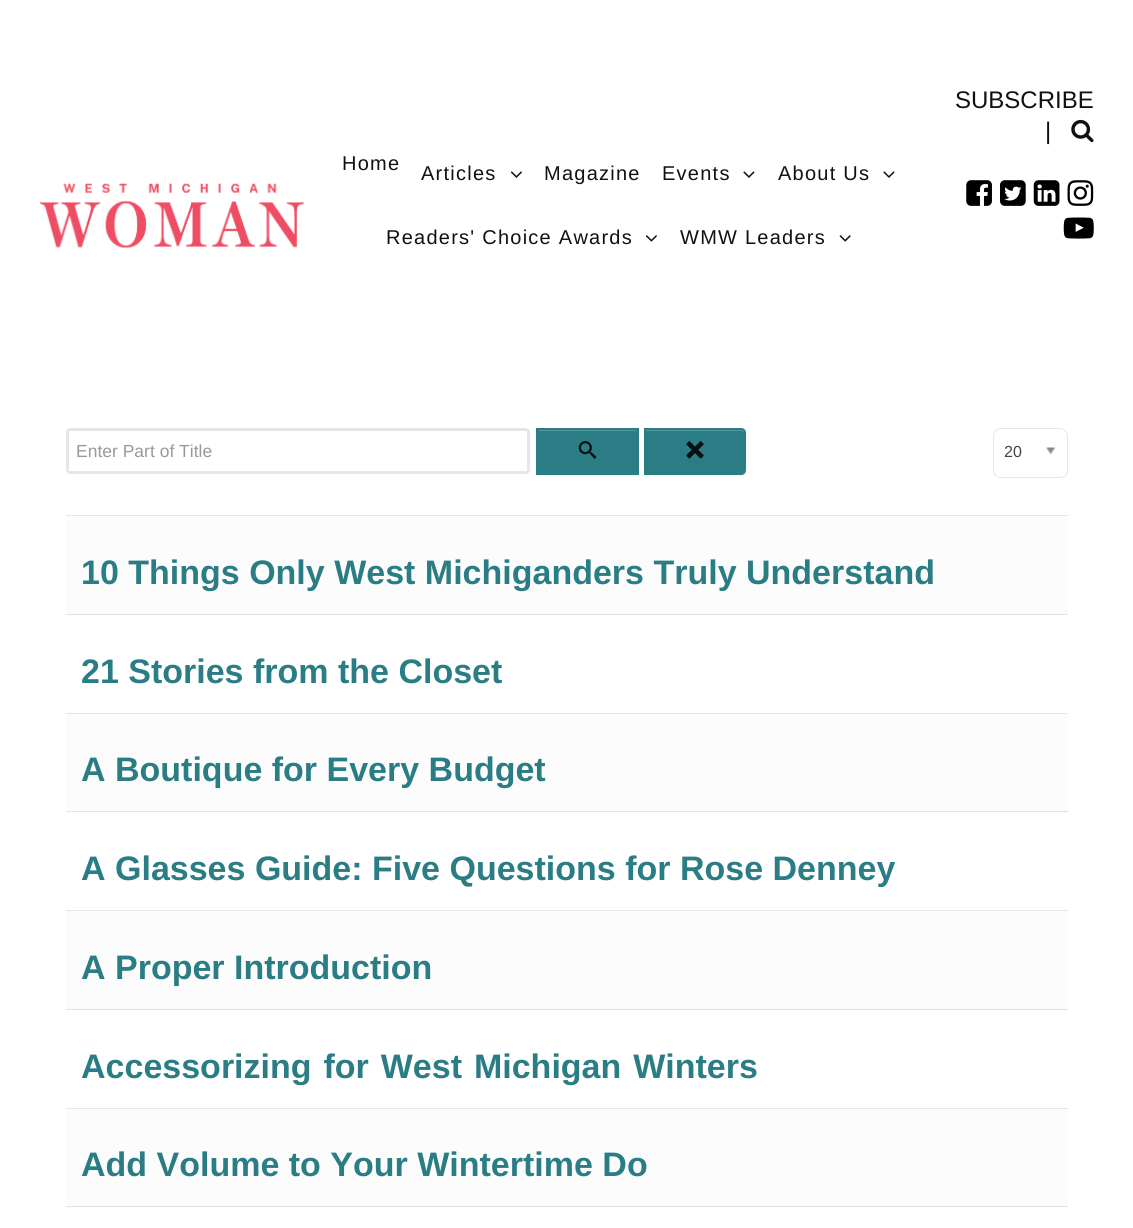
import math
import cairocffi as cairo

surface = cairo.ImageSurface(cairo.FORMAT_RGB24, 1133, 1228)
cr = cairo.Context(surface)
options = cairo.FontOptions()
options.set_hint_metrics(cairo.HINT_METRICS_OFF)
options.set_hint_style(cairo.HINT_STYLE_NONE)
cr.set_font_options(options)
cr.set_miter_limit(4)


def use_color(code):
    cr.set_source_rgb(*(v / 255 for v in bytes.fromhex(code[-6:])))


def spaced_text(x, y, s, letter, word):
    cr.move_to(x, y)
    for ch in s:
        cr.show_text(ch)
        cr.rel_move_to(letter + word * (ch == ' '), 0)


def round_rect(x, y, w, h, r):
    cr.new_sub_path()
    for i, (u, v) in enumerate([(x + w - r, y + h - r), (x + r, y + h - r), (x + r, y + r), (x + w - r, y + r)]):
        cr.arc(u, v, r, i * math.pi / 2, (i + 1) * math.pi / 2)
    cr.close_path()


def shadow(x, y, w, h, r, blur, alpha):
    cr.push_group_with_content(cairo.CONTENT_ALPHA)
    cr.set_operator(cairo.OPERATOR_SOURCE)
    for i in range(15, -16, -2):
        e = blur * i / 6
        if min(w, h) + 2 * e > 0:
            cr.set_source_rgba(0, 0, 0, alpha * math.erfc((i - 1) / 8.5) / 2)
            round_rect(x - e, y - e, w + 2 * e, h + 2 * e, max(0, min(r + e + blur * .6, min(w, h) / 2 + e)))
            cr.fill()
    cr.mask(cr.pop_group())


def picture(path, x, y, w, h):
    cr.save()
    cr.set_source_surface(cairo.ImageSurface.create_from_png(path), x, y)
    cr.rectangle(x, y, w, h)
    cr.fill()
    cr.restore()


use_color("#ffffff")
cr.paint()
cr.select_font_face("Liberation Sans")
cr.set_font_size(24)
use_color("#111111")
cr.move_to(955, 108)
cr.show_text("SUBSCRIBE")
cr.move_to(1045, 139)
cr.show_text("|")
picture("img1.png", 1071, 119, 23, 24)
picture("img2.png", 40, 183, 264, 65)
cr.set_font_size(20)
spaced_text(342, 170, "Home", 1.25, 0)
spaced_text(421, 180, "Articles", 1.25, 0)
picture("img3.png", 510, 171, 12, 7)
spaced_text(544, 180, "Magazine", 1.25, 0)
spaced_text(662, 180, "Events", 1.25, 0)
picture("img4.png", 743, 171, 12, 7)
spaced_text(778, 180, "About Us", 1.25, 0)
picture("img4.png", 883, 171, 12, 7)
spaced_text(386, 244, "Readers' Choice Awards", 1.25, 0)
picture("img5.png", 645, 235, 12, 7)
spaced_text(680, 244, "WMW Leaders", 1.25, 0)
picture("img6.png", 839, 235, 12, 7)
picture("img7.png", 966, 180, 26, 26)
picture("img8.png", 1000, 180, 26, 26)
picture("img9.png", 1033, 180, 27, 26)
picture("img10.png", 1067, 180, 27, 26)
picture("img11.png", 1063, 217, 31, 22)
round_rect(67.5, 429.5, 461, 43, 2.5)
use_color("#e6e6e6")
cr.set_line_width(3)
cr.stroke()
cr.set_font_size(17.5)
use_color("#999999")
cr.move_to(76, 457)
cr.show_text("Enter Part of Title")
use_color("#000000")
shadow(536, 429, 103, 47, 0, 1, 0.05)
use_color("#2b7d85")
cr.rectangle(536, 428, 103, 47)
cr.fill()
use_color("#55979d")
cr.rectangle(539, 430, 97, 1)
cr.fill()
picture("img12.png", 578, 441, 19, 18)
use_color("#000000")
shadow(644, 429, 102, 47, 5, 1, 0.05)
use_color("#2b7d85")
cr.new_path()
cr.move_to(644, 428)
cr.line_to(741, 428)
cr.curve_to(744, 428, 746, 430, 746, 433)
cr.line_to(746, 470)
cr.curve_to(746, 473, 744, 475, 741, 475)
cr.line_to(644, 475)
cr.close_path()
cr.fill()
use_color("#55979d")
cr.new_path()
cr.move_to(646, 431)
cr.line_to(741, 431)
cr.curve_to(743, 431, 744, 432, 744, 434)
cr.line_to(744, 432)
cr.curve_to(744, 431, 743, 430, 742, 430)
cr.line_to(646, 430)
cr.close_path()
cr.fill()
picture("img13.png", 686, 441, 18, 18)
round_rect(993.5, 428.5, 74, 49, 7.5)
use_color("#e6e6e6")
cr.set_line_width(1)
cr.stroke()
cr.set_font_size(16)
use_color("#444444")
cr.move_to(1004, 457)
cr.show_text("20")
picture("img14.png", 1046, 447, 10, 8)
use_color("#e6e6e6")
cr.rectangle(66, 515, 1002, 1)
cr.fill()
use_color("#fcfcfc")
cr.rectangle(66, 516, 1002, 98)
cr.fill()
use_color("#e3e3e3")
cr.rectangle(66, 614, 1002, 1)
cr.fill()
cr.select_font_face("Liberation Sans", cairo.FONT_SLANT_NORMAL, cairo.FONT_WEIGHT_BOLD)
cr.set_font_size(34)
use_color("#2b7d85")
cr.move_to(81, 584)
cr.show_text("10 Things Only West Michiganders Truly Understand")
use_color("#e6e6e6")
cr.rectangle(66, 713, 1002, 1)
cr.fill()
use_color("#2b7d85")
cr.move_to(81, 683)
cr.show_text("21 Stories from the Closet")
use_color("#fcfcfc")
cr.rectangle(66, 714, 1002, 99)
cr.fill()
use_color("#e3e3e3")
cr.rectangle(66, 811, 1002, 1)
cr.fill()
use_color("#2b7d85")
cr.move_to(81, 781)
cr.show_text("A Boutique for Every Budget")
use_color("#e6e6e6")
cr.rectangle(66, 910, 1002, 1)
cr.fill()
use_color("#2b7d85")
cr.move_to(81, 880)
cr.show_text("A Glasses Guide: Five Questions for Rose Denney")
use_color("#fcfcfc")
cr.rectangle(66, 911, 1002, 98)
cr.fill()
use_color("#e3e3e3")
cr.rectangle(66, 1009, 1002, 1)
cr.fill()
use_color("#2b7d85")
cr.move_to(81, 979)
cr.show_text("A Proper Introduction")
use_color("#e6e6e6")
cr.rectangle(66, 1108, 1002, 1)
cr.fill()
use_color("#2b7d85")
spaced_text(81, 1078, "Accessorizing for West Michigan Winters", 0, 2.5)
use_color("#fcfcfc")
cr.rectangle(66, 1109, 1002, 99)
cr.fill()
use_color("#e3e3e3")
cr.rectangle(66, 1206, 1002, 1)
cr.fill()
use_color("#2b7d85")
cr.move_to(81, 1176)
cr.show_text("Add Volume to Your Wintertime Do")
surface.write_to_png("result.png")
